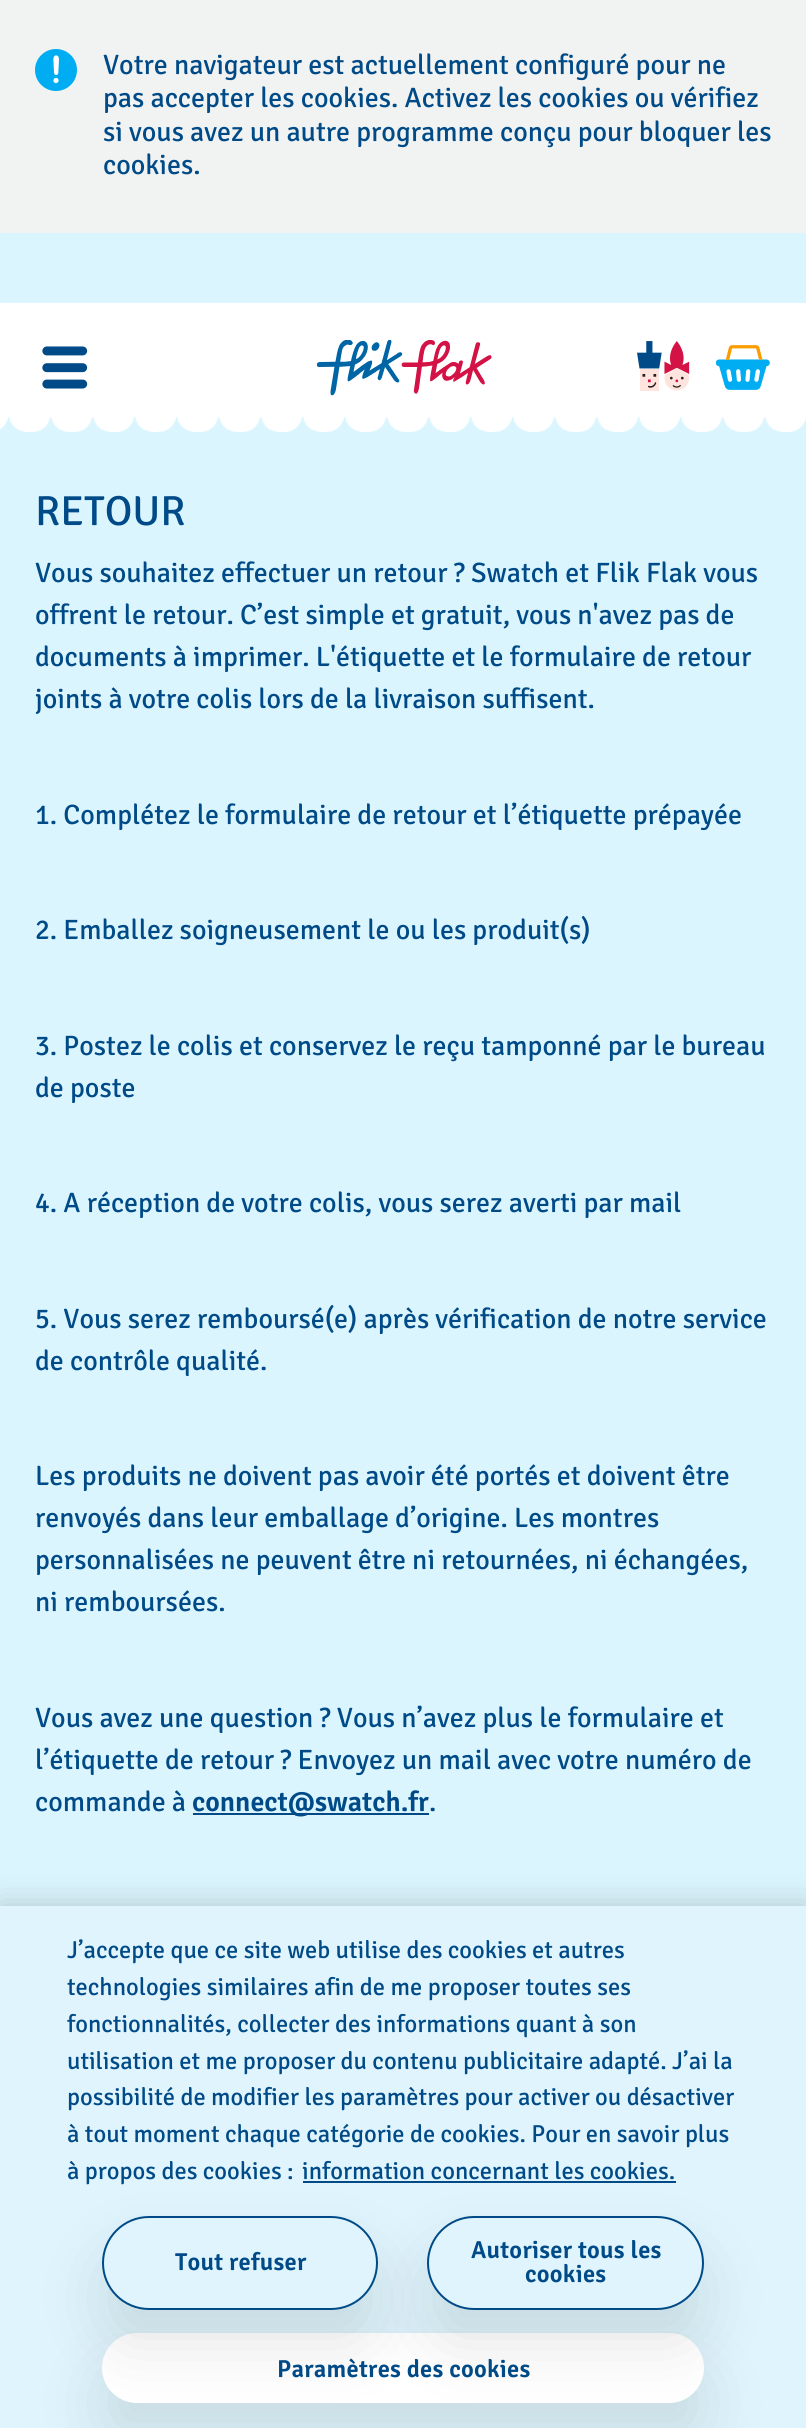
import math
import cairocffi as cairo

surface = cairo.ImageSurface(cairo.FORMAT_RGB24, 806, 2428)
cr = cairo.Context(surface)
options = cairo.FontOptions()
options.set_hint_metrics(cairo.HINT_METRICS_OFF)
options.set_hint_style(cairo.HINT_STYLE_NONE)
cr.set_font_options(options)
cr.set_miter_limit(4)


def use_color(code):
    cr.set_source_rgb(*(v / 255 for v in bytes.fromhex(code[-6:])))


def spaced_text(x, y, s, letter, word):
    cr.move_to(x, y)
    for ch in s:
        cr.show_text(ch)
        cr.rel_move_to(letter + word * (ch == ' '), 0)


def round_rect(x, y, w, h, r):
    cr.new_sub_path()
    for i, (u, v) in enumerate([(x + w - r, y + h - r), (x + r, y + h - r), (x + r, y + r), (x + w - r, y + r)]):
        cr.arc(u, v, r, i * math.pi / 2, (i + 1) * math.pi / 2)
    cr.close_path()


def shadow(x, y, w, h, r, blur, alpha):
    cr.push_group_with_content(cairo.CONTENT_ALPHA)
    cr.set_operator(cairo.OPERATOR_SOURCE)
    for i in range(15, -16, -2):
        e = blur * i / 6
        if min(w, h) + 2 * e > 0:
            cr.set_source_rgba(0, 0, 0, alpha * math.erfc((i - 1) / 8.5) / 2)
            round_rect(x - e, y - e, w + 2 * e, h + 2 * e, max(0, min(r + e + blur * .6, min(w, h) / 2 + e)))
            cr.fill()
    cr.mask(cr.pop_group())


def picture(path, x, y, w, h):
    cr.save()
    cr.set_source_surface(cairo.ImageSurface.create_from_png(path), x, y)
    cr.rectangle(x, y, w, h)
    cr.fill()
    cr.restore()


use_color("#daf5fe")
cr.paint()
use_color("#f1f2f2")
cr.rectangle(0, 0, 806, 233)
cr.fill()
picture("img1.png", 35, 49, 42, 42)
cr.select_font_face("Signika")
cr.set_font_size(28)
use_color("#004b87")
cr.move_to(103, 74)
cr.show_text("Votre navigateur est actuellement configuré pour ne")
cr.move_to(103, 107)
cr.show_text("pas accepter les cookies. Activez les cookies ou vérifiez")
cr.move_to(103, 141)
cr.show_text("si vous avez un autre programme conçu pour bloquer les")
cr.move_to(103, 174)
cr.show_text("cookies.")
use_color("#ffffff")
cr.rectangle(0, 303, 806, 114)
cr.fill()
picture("img2.png", 42, 346, 46, 43)
picture("img3.png", 317, 340, 175, 56)
picture("img4.png", 637, 341, 53, 50)
picture("img5.png", 716, 345, 54, 45)
picture("img6.png", 0, 417, 806, 15)
cr.set_font_size(42)
use_color("#004b87")
cr.move_to(35, 525)
cr.show_text("RETOUR")
cr.set_font_size(28)
cr.move_to(35, 582)
cr.show_text("Vous souhaitez effectuer un retour ? Swatch et Flik Flak vous")
cr.move_to(35, 624)
cr.show_text("offrent le retour. C’est simple et gratuit, vous n'avez pas de")
cr.move_to(35, 666)
cr.show_text("documents à imprimer. L'étiquette et le formulaire de retour")
cr.move_to(35, 708)
cr.show_text("joints à votre colis lors de la livraison suffisent.")
cr.move_to(35, 824)
cr.show_text("1. Complétez le formulaire de retour et l’étiquette prépayée")
cr.move_to(35, 939)
cr.show_text("2. Emballez soigneusement le ou les produit(s)")
cr.move_to(35, 1055)
cr.show_text("3. Postez le colis et conservez le reçu tamponné par le bureau")
cr.move_to(35, 1097)
cr.show_text("de poste")
cr.move_to(35, 1212)
cr.show_text("4. A réception de votre colis, vous serez averti par mail")
cr.move_to(35, 1328)
cr.show_text("5. Vous serez remboursé(e) après vérification de notre service")
cr.move_to(35, 1370)
cr.show_text("de contrôle qualité.")
cr.move_to(35, 1485)
cr.show_text("Les produits ne doivent pas avoir été portés et doivent être")
cr.move_to(35, 1527)
cr.show_text("renvoyés dans leur emballage d’origine. Les montres")
cr.move_to(35, 1569)
cr.show_text("personnalisées ne peuvent être ni retournées, ni échangées,")
cr.move_to(35, 1611)
cr.show_text("ni remboursées.")
cr.move_to(35, 1727)
cr.show_text("Vous avez une question ? Vous n’avez plus le formulaire et")
cr.move_to(35, 1769)
cr.show_text("l’étiquette de retour ? Envoyez un mail avec votre numéro de")
cr.move_to(35, 1811)
cr.show_text("commande à")
cr.rectangle(193, 1813, 236, 2)
cr.fill()
cr.select_font_face("Signika SemiBold")
cr.move_to(192, 1811)
cr.show_text("connect@swatch.fr")
cr.select_font_face("Signika")
cr.move_to(429, 1811)
cr.show_text(".")
use_color("#000000")
shadow(0, 1906, 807, 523, 0, 16, 0.2)
use_color("#dff4fd")
cr.rectangle(0, 1906, 806, 522)
cr.fill()
cr.set_font_size(24.5)
use_color("#004b87")
cr.move_to(67, 1958)
cr.show_text("J’accepte que ce site web utilise des cookies et autres")
cr.move_to(67, 1995)
cr.show_text("technologies similaires afin de me proposer toutes ses")
cr.move_to(67, 2032)
cr.show_text("fonctionnalités, collecter des informations quant à son")
cr.move_to(67, 2069)
cr.show_text("utilisation et me proposer du contenu publicitaire adapté. J’ai la")
cr.move_to(67, 2105)
cr.show_text("possibilité de modifier les paramètres pour activer ou désactiver")
cr.move_to(67, 2142)
cr.show_text("à tout moment chaque catégorie de cookies. Pour en savoir plus")
use_color("#000000")
shadow(102, 2368, 602, 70, 35, 31.5, 0.1)
use_color("#ffffff")
round_rect(103, 2334, 600, 68, 34)
cr.fill_preserve()
cr.stroke()
use_color("#000000")
shadow(102, 2251, 276, 94, 47, 31.5, 0.1)
use_color("#004b87")
cr.move_to(67, 2179)
cr.show_text("à propos des cookies :")
use_color("#dff4fd")
round_rect(103, 2217, 274, 92, 46)
cr.fill_preserve()
use_color("#004b87")
cr.stroke()
use_color("#000000")
shadow(427, 2251, 277, 94, 47, 31.5, 0.1)
use_color("#004b87")
cr.move_to(302, 2179)
cr.show_text("information concernant les cookies.")
cr.rectangle(303, 2181, 373, 2)
cr.fill()
cr.select_font_face("Signika SemiBold")
spaced_text(175, 2270, "Tout refuser", 0.25, 0)
use_color("#dff4fd")
round_rect(428, 2217, 275, 92, 46)
cr.fill_preserve()
use_color("#004b87")
cr.stroke()
spaced_text(471, 2258, "Autoriser tous les", 0.25, 0)
spaced_text(525, 2282, "cookies", 0.25, 0)
spaced_text(277, 2377, "Paramètres des cookies", 0.25, 0)
surface.write_to_png("result.png")
